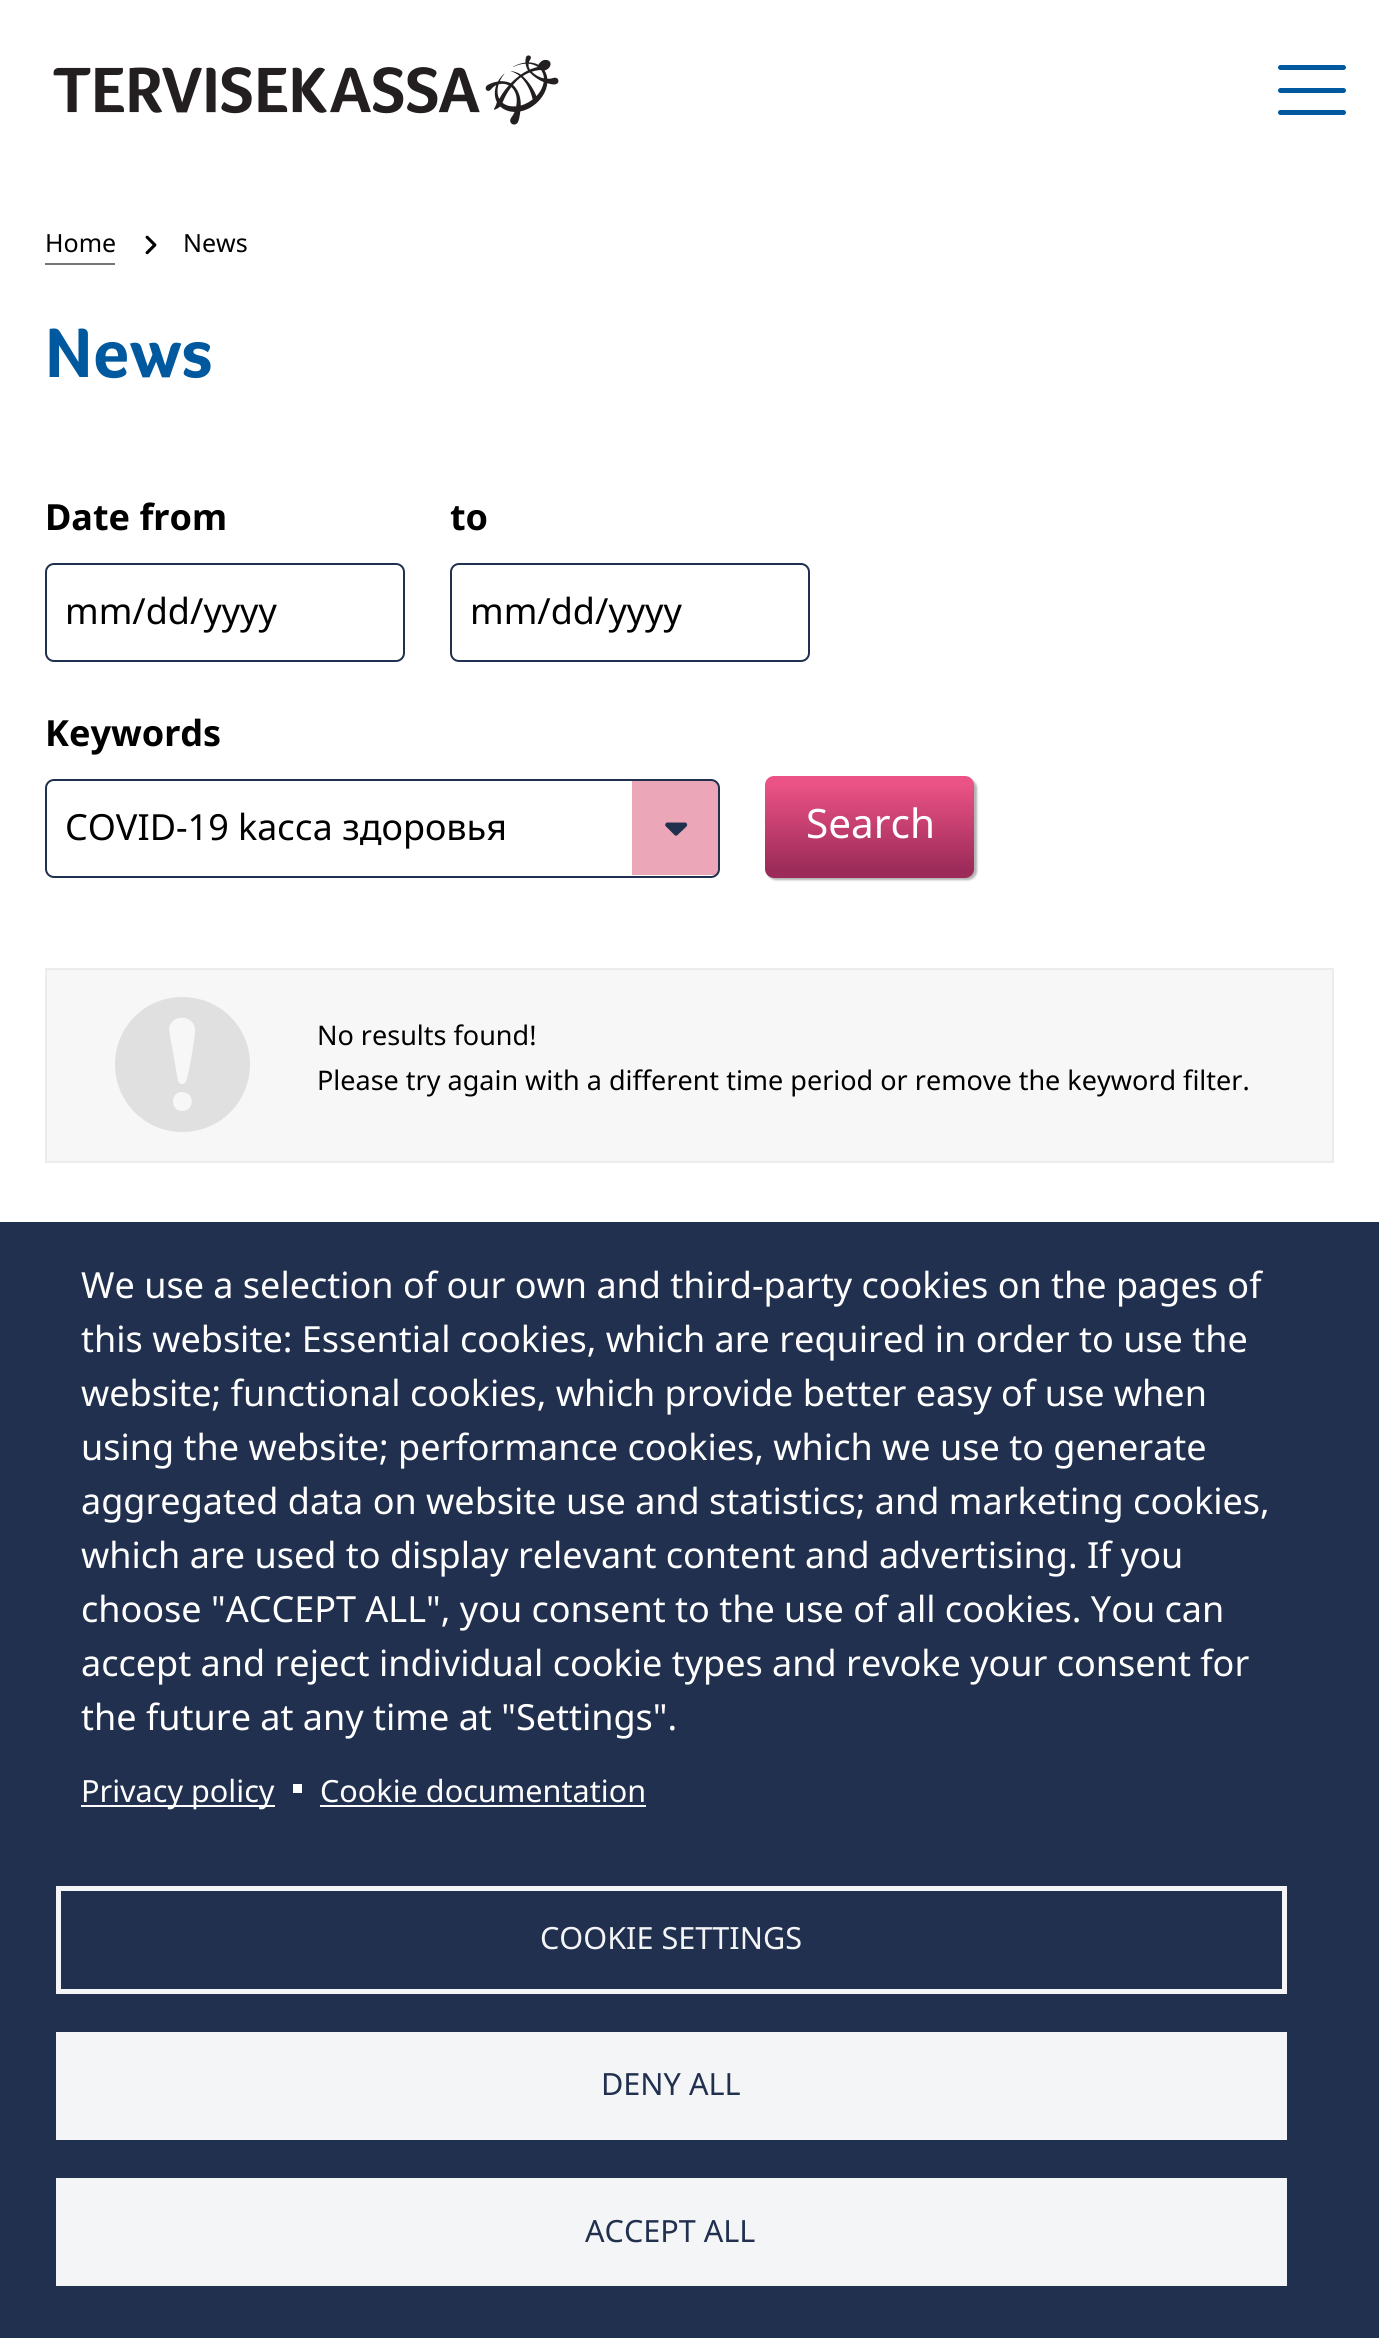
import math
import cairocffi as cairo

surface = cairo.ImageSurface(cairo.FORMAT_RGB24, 1379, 2338)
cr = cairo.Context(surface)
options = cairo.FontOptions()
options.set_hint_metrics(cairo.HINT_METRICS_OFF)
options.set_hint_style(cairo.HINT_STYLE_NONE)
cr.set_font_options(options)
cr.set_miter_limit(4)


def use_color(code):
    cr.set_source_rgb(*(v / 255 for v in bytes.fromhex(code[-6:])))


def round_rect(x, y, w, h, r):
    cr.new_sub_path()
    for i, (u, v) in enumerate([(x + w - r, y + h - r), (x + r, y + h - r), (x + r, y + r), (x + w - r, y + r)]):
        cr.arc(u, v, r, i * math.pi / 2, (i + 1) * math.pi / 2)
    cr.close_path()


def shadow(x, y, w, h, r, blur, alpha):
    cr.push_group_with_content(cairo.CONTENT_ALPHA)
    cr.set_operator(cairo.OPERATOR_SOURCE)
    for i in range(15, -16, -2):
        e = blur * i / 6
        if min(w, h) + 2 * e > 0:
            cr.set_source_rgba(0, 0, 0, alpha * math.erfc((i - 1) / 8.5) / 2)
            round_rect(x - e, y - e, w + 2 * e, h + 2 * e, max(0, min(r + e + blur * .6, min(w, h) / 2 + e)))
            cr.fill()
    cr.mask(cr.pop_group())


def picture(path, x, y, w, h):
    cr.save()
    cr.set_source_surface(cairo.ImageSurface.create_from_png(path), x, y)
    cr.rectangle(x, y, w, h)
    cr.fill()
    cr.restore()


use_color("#ffffff")
cr.paint()
picture("img1.png", 53, 55, 506, 70)
use_color("#00599e")
round_rect(1278, 65, 68, 5, 2.5)
cr.fill()
round_rect(1278, 88, 68, 5, 2.5)
cr.fill()
round_rect(1278, 110, 68, 5, 2.5)
cr.fill()
use_color("#757575")
cr.rectangle(45, 263, 70, 2)
cr.fill()
cr.select_font_face("Noto Sans")
cr.set_font_size(25)
use_color("#000000")
cr.move_to(45, 252)
cr.show_text("Home")
picture("img2.png", 145, 235, 12, 20)
cr.move_to(183, 252)
cr.show_text("News")
cr.select_font_face("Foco", cairo.FONT_SLANT_NORMAL, cairo.FONT_WEIGHT_BOLD)
cr.set_font_size(72)
use_color("#00599e")
cr.move_to(45, 377)
cr.show_text("News")
cr.select_font_face("Noto Sans", cairo.FONT_SLANT_NORMAL, cairo.FONT_WEIGHT_BOLD)
cr.set_font_size(36)
use_color("#000000")
cr.move_to(45, 530)
cr.show_text("Date from")
round_rect(46, 564, 358, 97, 8)
use_color("#21304f")
cr.stroke()
cr.select_font_face("Noto Sans")
use_color("#000000")
cr.move_to(65, 624)
cr.show_text("mm/dd/yyyy")
cr.select_font_face("Noto Sans", cairo.FONT_SLANT_NORMAL, cairo.FONT_WEIGHT_BOLD)
cr.move_to(450, 530)
cr.show_text("to")
round_rect(451, 564, 358, 97, 8)
use_color("#21304f")
cr.stroke()
cr.select_font_face("Noto Sans")
use_color("#000000")
cr.move_to(470, 624)
cr.show_text("mm/dd/yyyy")
cr.select_font_face("Noto Sans", cairo.FONT_SLANT_NORMAL, cairo.FONT_WEIGHT_BOLD)
cr.move_to(45, 746)
cr.show_text("Keywords")
cr.save()
round_rect(45, 779, 675, 99, 9)
cr.clip()
use_color("#eba7b8")
cr.rectangle(632, 781, 86, 94)
cr.fill()
cr.restore()
use_color("#21304f")
cr.new_path()
cr.move_to(674.5, 835)
cr.curve_to(675.5, 836, 677, 836, 677.5, 835)
cr.line_to(686.5, 826.5)
cr.curve_to(687, 825.5, 687.5, 824.5, 687, 824)
cr.curve_to(686.5, 823, 686, 822.5, 685, 822.5)
cr.line_to(667.5, 822.5)
cr.curve_to(666.5, 822.5, 665.5, 823, 665.5, 824)
cr.curve_to(665, 824.5, 665, 825.5, 666, 826.5)
cr.close_path()
cr.fill()
round_rect(46, 780, 673, 97, 8)
cr.stroke()
cr.select_font_face("Noto Sans")
use_color("#000000")
cr.move_to(65, 840)
cr.show_text("COVID-19 kасса здоровья")
use_color("#000000")
shadow(767, 779, 210, 101, 9, 1, 0.3)
gradient = cairo.LinearGradient(870, 878, 870, 776)
gradient.add_color_stop_rgba(0.08, 0.612, 0.169, 0.349, 1)
gradient.add_color_stop_rgba(0.92, 0.922, 0.322, 0.522, 1)
cr.set_source(gradient)
round_rect(765, 776, 209, 102, 9)
cr.fill()
cr.set_font_size(40.5)
use_color("#ffffff")
cr.move_to(806, 838)
cr.show_text("Search")
use_color("#f7f7f7")
cr.rectangle(47, 970, 1285, 191)
cr.fill()
use_color("#e0e0e0")
cr.set_fill_rule(cairo.FILL_RULE_EVEN_ODD)
cr.new_path()
cr.move_to(182, 997)
cr.curve_to(145, 997, 115, 1027, 115, 1064)
cr.curve_to(115, 1102, 145, 1132, 182, 1132)
cr.curve_to(220, 1132, 250, 1102, 250, 1064)
cr.curve_to(250, 1027, 220, 997, 182, 997)
cr.close_path()
cr.move_to(182, 1111)
cr.curve_to(170, 1111, 170, 1092, 182, 1092)
cr.curve_to(195, 1092, 195, 1111, 182, 1111)
cr.close_path()
cr.move_to(195, 1032)
cr.line_to(194, 1041)
cr.curve_to(193, 1047, 188, 1081, 185, 1083)
cr.curve_to(183, 1085, 179, 1084, 178, 1081)
cr.line_to(171, 1041)
cr.line_to(169, 1029)
cr.curve_to(171, 1012, 197, 1015, 195, 1032)
cr.close_path()
cr.fill()
cr.rectangle(46, 969, 1287, 193)
use_color("#ececec")
cr.stroke()
cr.set_font_size(27)
use_color("#000000")
cr.move_to(317, 1045)
cr.show_text("No results found!")
cr.move_to(317, 1090)
cr.show_text("Please try again with a different time period or remove the keyword filter.")
use_color("#21304f")
cr.rectangle(0, 1222, 1379, 1116)
cr.fill()
cr.set_font_size(36)
use_color("#ffffff")
cr.move_to(81, 1298)
cr.show_text("We use a selection of our own and third-party cookies on the pages of")
cr.move_to(81, 1352)
cr.show_text("this website: Essential cookies, which are required in order to use the")
cr.move_to(81, 1406)
cr.show_text("website; functional cookies, which provide better easy of use when")
cr.move_to(81, 1460)
cr.show_text("using the website; performance cookies, which we use to generate")
cr.move_to(81, 1514)
cr.show_text("aggregated data on website use and statistics; and marketing cookies,")
cr.move_to(81, 1568)
cr.show_text("which are used to display relevant content and advertising. If you")
cr.move_to(81, 1622)
cr.show_text("choose \"ACCEPT ALL\", you consent to the use of all cookies. You can")
cr.move_to(81, 1676)
cr.show_text("accept and reject individual cookie types and revoke your consent for")
cr.move_to(81, 1730)
cr.show_text("the future at any time at \"Settings\".")
cr.rectangle(81, 1805, 194, 2)
cr.fill()
cr.set_font_size(30.6)
cr.move_to(81, 1802)
cr.show_text("Privacy policy")
cr.rectangle(293, 1784, 9, 9)
cr.fill()
cr.move_to(320, 1802)
cr.show_text("Cookie documentation")
cr.rectangle(320, 1805, 326, 2)
cr.fill()
cr.rectangle(58.5, 1888.5, 1226, 103)
use_color("#f4f5f6")
cr.set_line_width(5)
cr.stroke()
cr.move_to(540, 1949)
cr.show_text("COOKIE SETTINGS")
cr.rectangle(56, 2032, 1231, 108)
cr.fill()
use_color("#21304f")
cr.move_to(601, 2095)
cr.show_text("DENY ALL")
use_color("#f4f5f6")
cr.rectangle(56, 2178, 1231, 108)
cr.fill()
use_color("#21304f")
cr.move_to(585, 2242)
cr.show_text("ACCEPT ALL")
surface.write_to_png("result.png")
